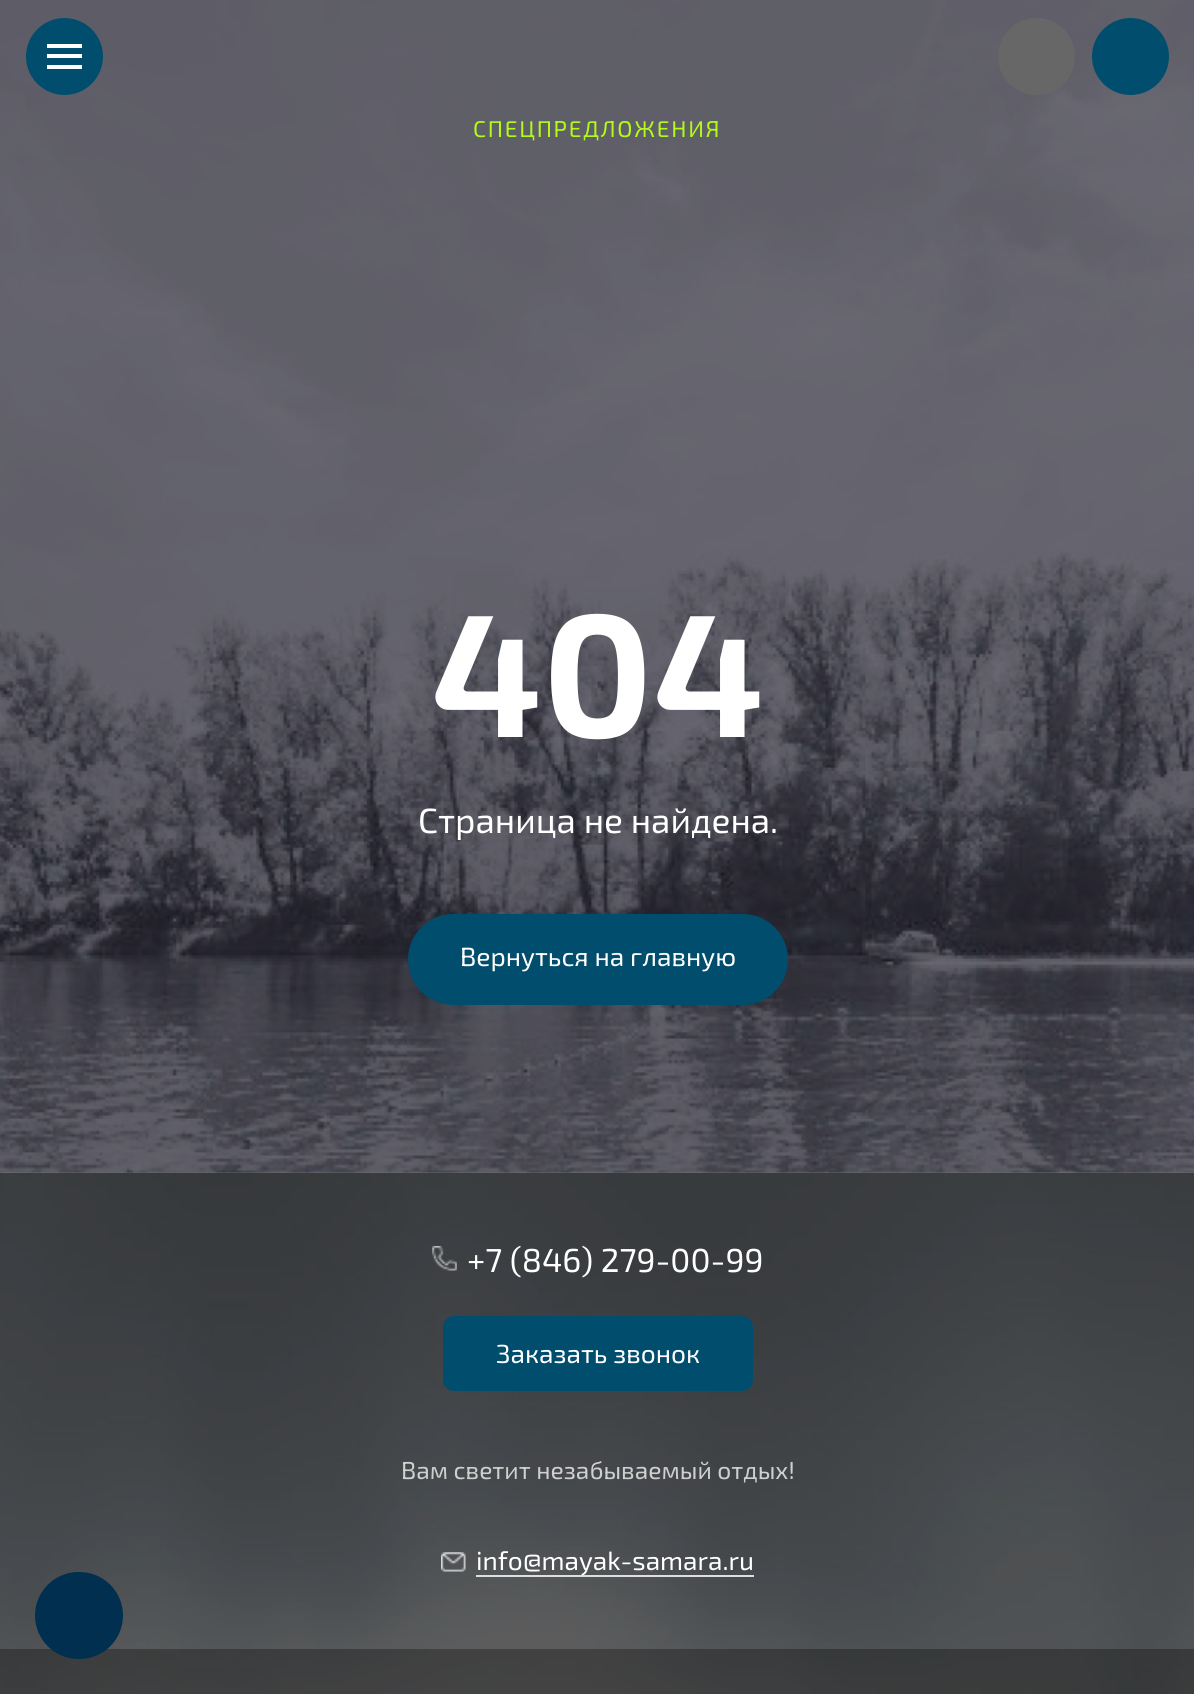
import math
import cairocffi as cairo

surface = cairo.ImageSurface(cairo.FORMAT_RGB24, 1194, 1694)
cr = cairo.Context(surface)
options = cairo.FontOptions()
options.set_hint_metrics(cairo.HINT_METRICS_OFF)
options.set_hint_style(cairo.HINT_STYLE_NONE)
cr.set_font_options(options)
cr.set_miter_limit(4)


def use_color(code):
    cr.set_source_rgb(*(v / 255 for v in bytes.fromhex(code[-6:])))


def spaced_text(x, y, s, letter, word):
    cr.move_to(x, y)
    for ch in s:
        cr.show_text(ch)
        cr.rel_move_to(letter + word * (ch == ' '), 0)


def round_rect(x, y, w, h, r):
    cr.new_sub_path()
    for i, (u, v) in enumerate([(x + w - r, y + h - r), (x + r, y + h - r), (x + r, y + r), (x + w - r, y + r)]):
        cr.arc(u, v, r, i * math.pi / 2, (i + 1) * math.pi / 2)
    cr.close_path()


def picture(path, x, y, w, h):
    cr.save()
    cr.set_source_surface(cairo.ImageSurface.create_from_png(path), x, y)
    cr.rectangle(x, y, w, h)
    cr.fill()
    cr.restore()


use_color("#ffffff")
cr.paint()
picture("img1.png", 0, 0, 1194, 1173)
use_color("#014d6d")
cr.arc(64.5, 56.5, 38.5, 0, 2 * math.pi)
cr.fill()
use_color("#ffffff")
cr.rectangle(47, 44, 35, 4)
cr.fill()
cr.rectangle(47, 54, 35, 4)
cr.fill()
cr.rectangle(47, 65, 35, 4)
cr.fill()
use_color("#676767")
cr.arc(1036.5, 56.5, 38.5, 0, 2 * math.pi)
cr.fill()
use_color("#014d6d")
cr.arc(1130.5, 56.5, 38.5, 0, 2 * math.pi)
cr.fill()
cr.select_font_face("Exo 2")
cr.set_font_size(22.75)
use_color("#b1fb17")
spaced_text(473, 137, "СПЕЦПРЕДЛОЖЕНИЯ", 1.75, 0)
cr.select_font_face("Exo 2", cairo.FONT_SLANT_NORMAL, cairo.FONT_WEIGHT_BOLD)
cr.set_font_size(175)
use_color("#ffffff")
cr.move_to(431, 737)
cr.show_text("404")
cr.select_font_face("Exo 2")
cr.set_font_size(35)
cr.move_to(418, 833)
cr.show_text("Страница не найдена.")
use_color("#014d6d")
round_rect(408, 914, 380, 91, 45.5)
cr.fill()
cr.set_font_size(26.25)
use_color("#ffffff")
cr.move_to(460, 966)
cr.show_text("Вернуться на главную")
picture("img2.png", 0, 1172, 1194, 522)
picture("img3.png", 432, 1246, 25, 25)
cr.set_font_size(33.25)
cr.move_to(467, 1272)
cr.show_text("+7 (846) 279-00-99")
use_color("#014d6d")
round_rect(443, 1316, 310, 75, 11)
cr.fill()
cr.set_font_size(26.25)
use_color("#ffffff")
cr.move_to(496, 1363)
cr.show_text("Заказать звонок")
cr.set_font_size(24.5)
use_color("#cfcfcf")
cr.move_to(401, 1479)
cr.show_text("Вам светит незабываемый отдых!")
picture("img4.png", 441, 1552, 25, 20)
use_color("#dedede")
cr.rectangle(476, 1575, 278, 2)
cr.fill()
cr.set_font_size(26.25)
use_color("#ffffff")
cr.move_to(476, 1570)
cr.show_text("info@mayak-samara.ru")
cr.set_source_rgba(0, 0, 0, 0.3)
cr.rectangle(0, 1649, 1194, 45)
cr.fill()
use_color("#002f4f")
round_rect(35, 1572, 88, 87, 43.5)
cr.fill()
surface.write_to_png("result.png")
